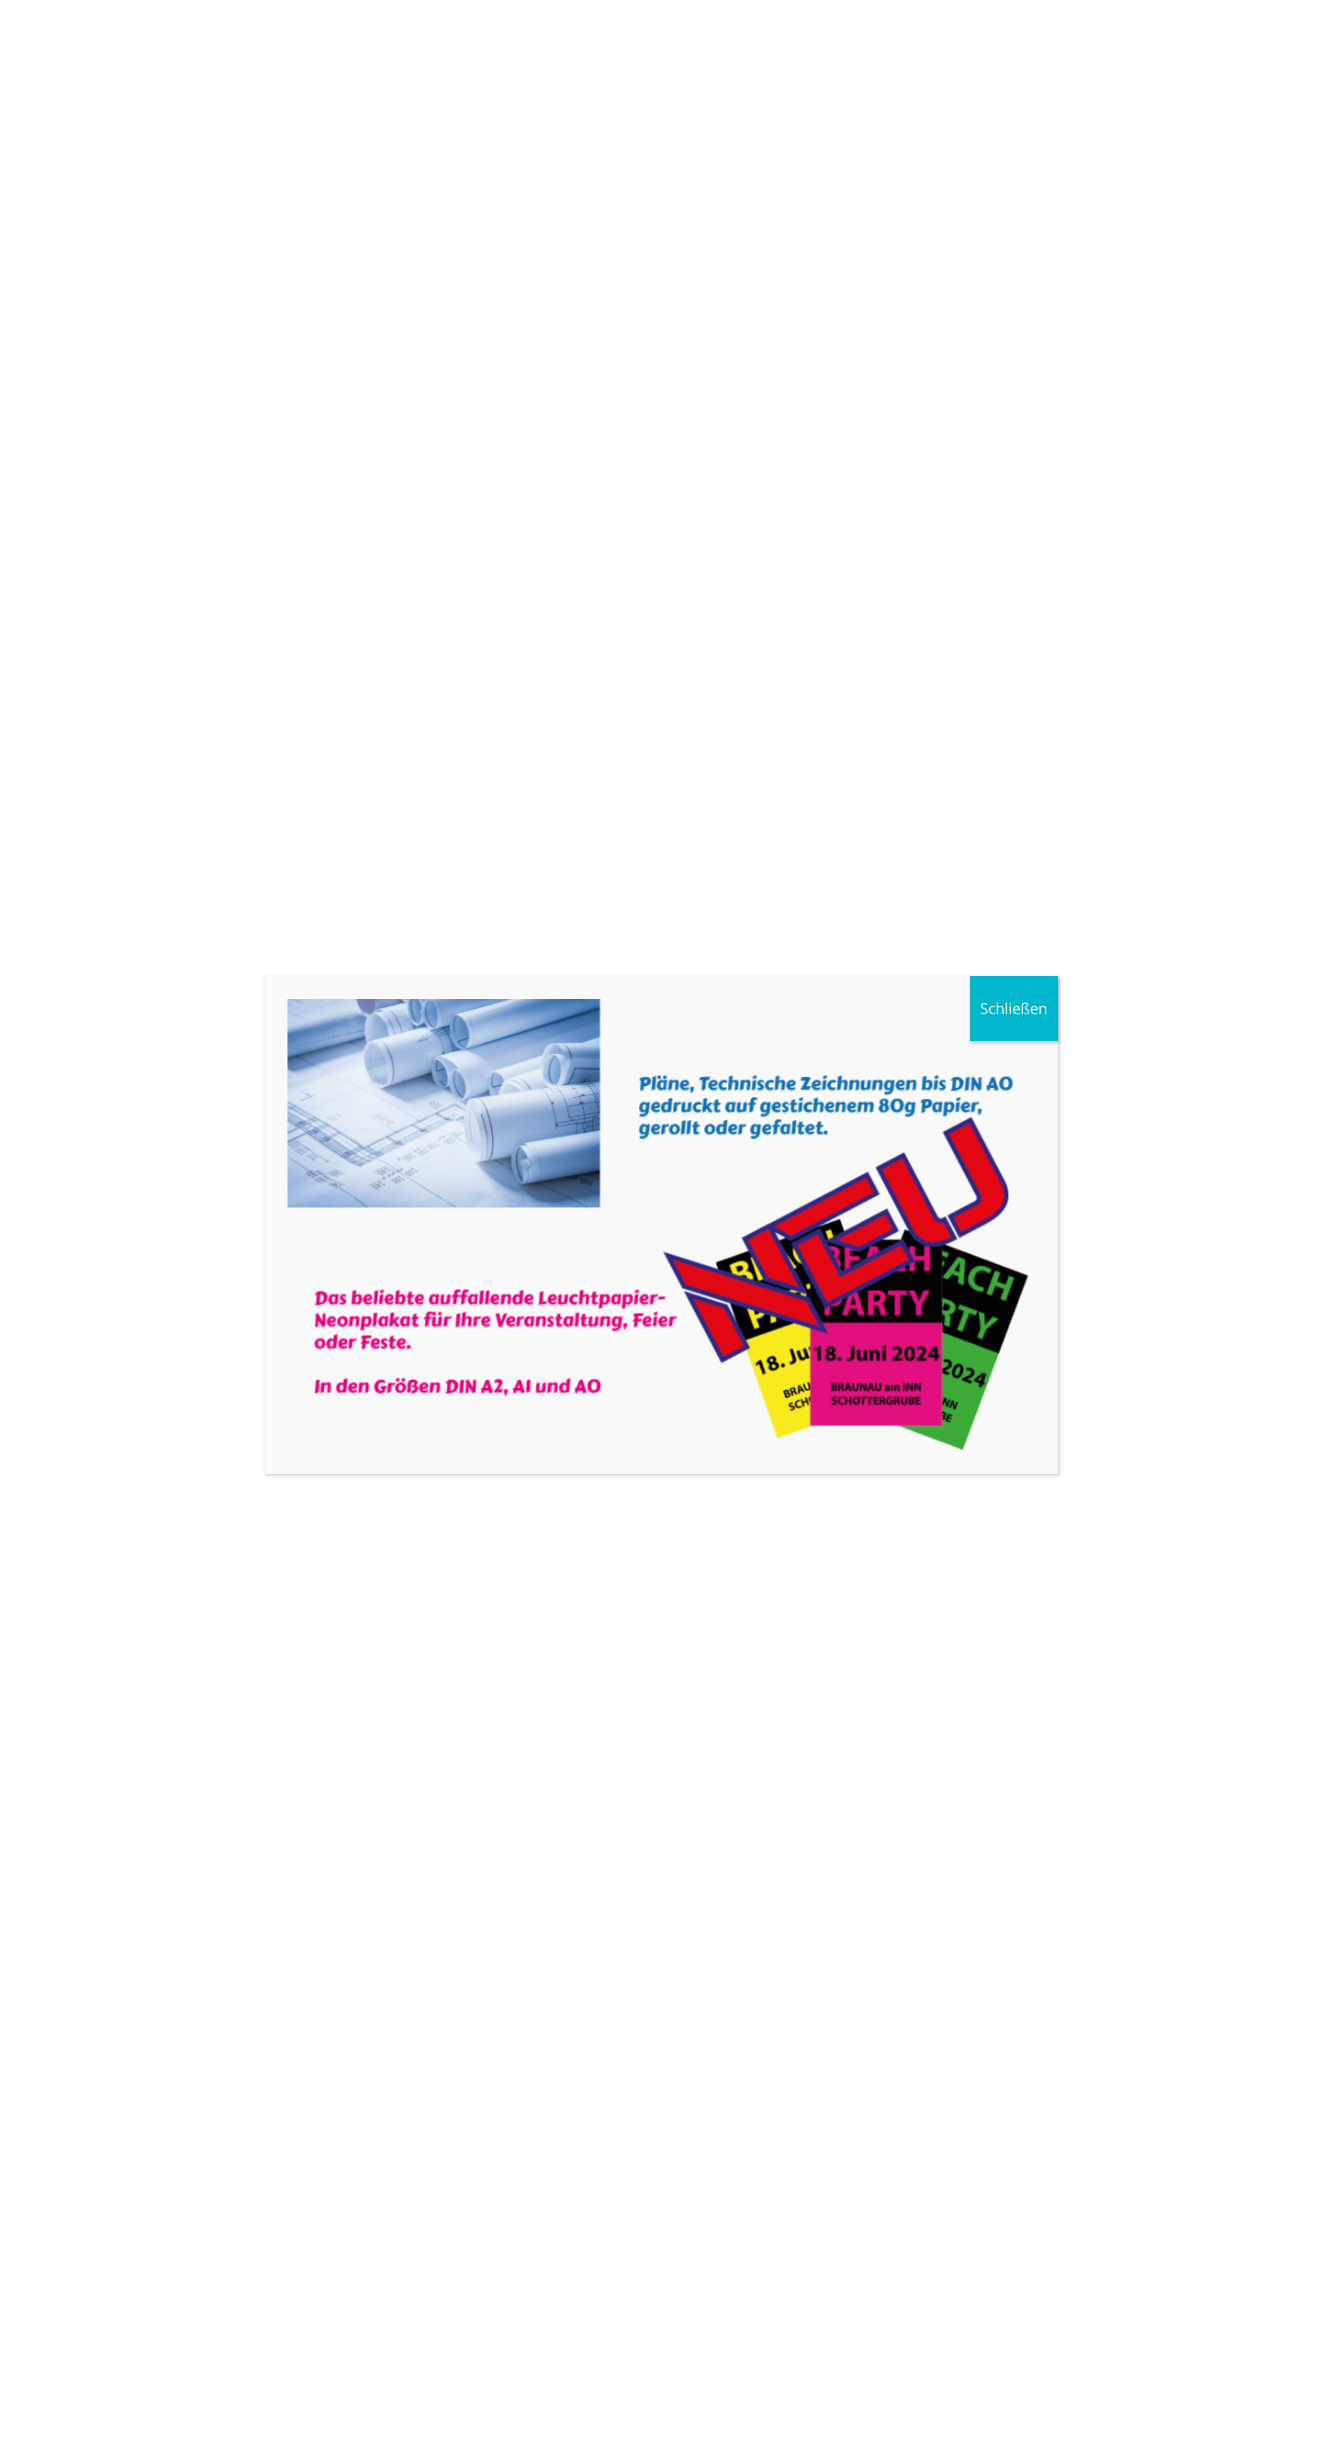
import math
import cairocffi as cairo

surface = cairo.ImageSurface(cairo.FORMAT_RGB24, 1322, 2449)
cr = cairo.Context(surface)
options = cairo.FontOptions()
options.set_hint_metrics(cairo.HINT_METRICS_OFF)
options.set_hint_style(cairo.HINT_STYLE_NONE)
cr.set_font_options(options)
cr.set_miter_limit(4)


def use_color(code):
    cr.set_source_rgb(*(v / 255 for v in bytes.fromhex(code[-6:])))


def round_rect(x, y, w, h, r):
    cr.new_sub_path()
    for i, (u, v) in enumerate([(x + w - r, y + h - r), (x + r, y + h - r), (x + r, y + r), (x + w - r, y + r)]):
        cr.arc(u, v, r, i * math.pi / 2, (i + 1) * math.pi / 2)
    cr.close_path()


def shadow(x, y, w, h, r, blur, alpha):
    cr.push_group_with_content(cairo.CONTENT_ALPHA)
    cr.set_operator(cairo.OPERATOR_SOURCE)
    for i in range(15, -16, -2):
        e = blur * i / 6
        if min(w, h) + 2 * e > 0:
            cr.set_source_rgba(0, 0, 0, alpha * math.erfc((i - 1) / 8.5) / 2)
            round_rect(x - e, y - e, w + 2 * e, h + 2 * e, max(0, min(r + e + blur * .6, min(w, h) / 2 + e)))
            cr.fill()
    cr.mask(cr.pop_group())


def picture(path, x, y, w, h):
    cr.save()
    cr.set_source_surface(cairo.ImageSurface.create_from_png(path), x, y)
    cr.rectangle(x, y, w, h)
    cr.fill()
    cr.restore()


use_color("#ffffff")
cr.paint()
use_color("#020202")
shadow(266, 978, 793, 497, 0, 2, 0.23)
use_color("#f9f9f9")
cr.rectangle(265, 976, 793, 498)
cr.fill()
picture("img1.png", 287, 999, 742, 452)
use_color("#020202")
shadow(971, 978, 88, 65, 0, 2, 0.23)
use_color("#00b7cd")
cr.rectangle(970, 976, 88, 65)
cr.fill()
cr.select_font_face("Open Sans")
cr.set_font_size(15)
use_color("#ffffff")
cr.move_to(980, 1014)
cr.show_text("Schließen")
surface.write_to_png("result.png")
